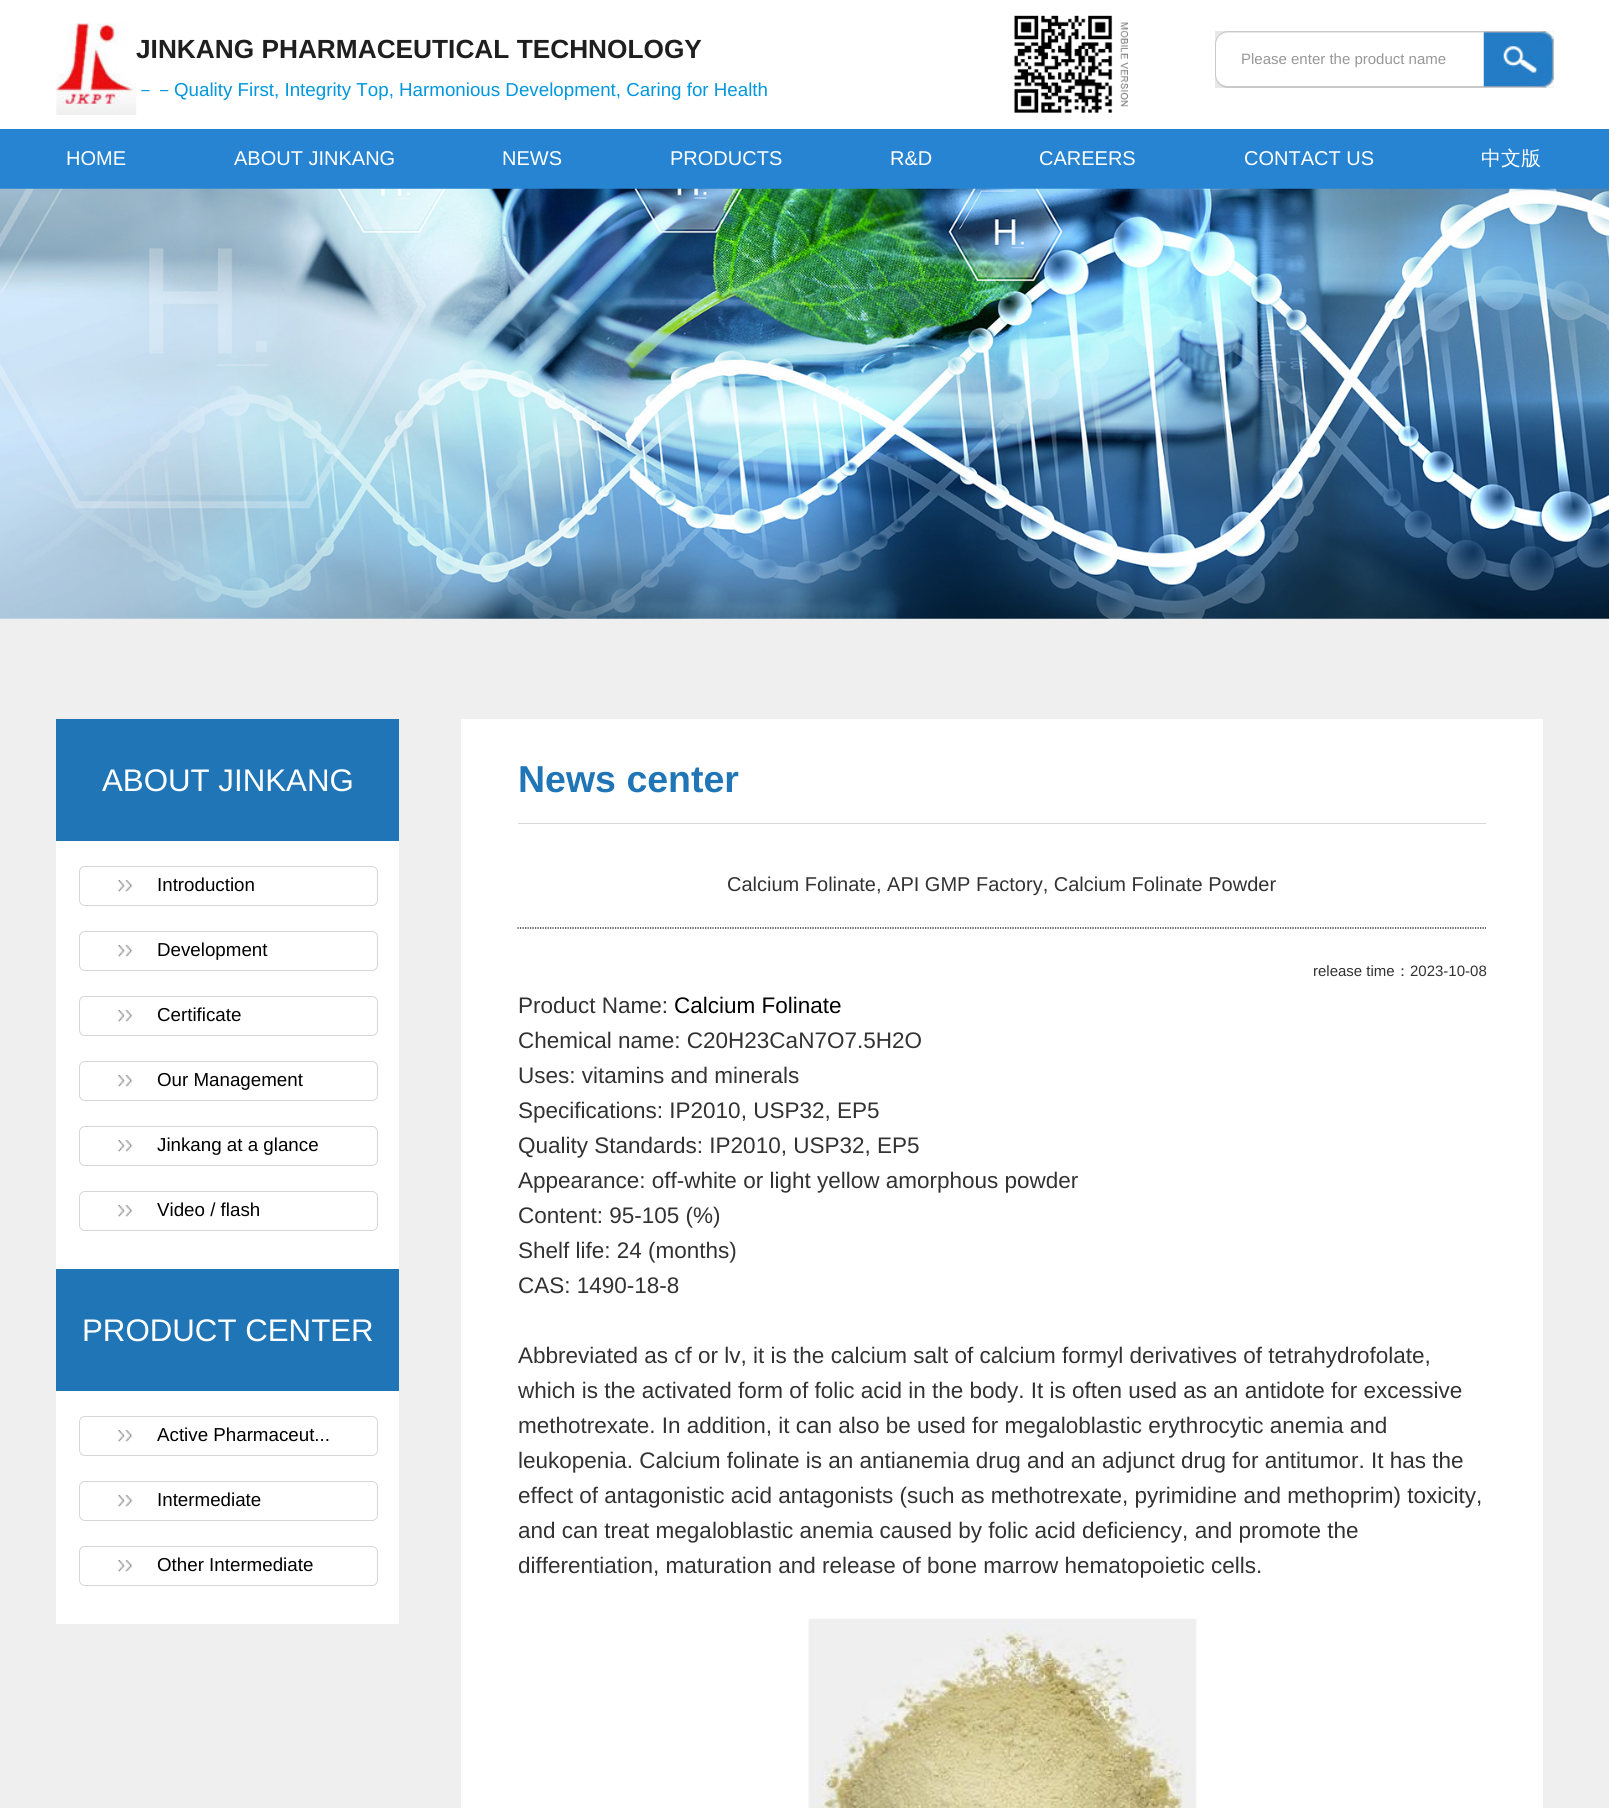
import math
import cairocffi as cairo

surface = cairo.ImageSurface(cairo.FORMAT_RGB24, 1609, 1808)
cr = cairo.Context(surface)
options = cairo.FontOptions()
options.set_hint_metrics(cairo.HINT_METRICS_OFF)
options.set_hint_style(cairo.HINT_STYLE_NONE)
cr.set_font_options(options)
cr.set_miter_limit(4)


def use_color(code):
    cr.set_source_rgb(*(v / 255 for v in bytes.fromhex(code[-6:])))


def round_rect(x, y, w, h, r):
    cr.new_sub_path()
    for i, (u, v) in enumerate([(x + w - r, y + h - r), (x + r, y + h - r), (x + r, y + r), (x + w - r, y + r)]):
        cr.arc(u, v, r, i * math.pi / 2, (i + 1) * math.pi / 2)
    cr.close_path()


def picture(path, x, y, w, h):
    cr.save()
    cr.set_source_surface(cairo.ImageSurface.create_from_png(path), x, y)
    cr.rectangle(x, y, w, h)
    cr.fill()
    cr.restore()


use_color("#ffffff")
cr.paint()
picture("img1.png", 56, 22, 81, 93)
cr.select_font_face("Liberation Sans", cairo.FONT_SLANT_NORMAL, cairo.FONT_WEIGHT_BOLD)
cr.set_font_size(26.25)
use_color("#1f1f1f")
cr.move_to(136, 58)
cr.show_text("JINKANG PHARMACEUTICAL TECHNOLOGY")
cr.select_font_face("WenQuanYi Zen Hei Medium")
cr.set_font_size(18.75)
use_color("#0097de")
cr.move_to(136, 96)
cr.show_text("－－")
cr.select_font_face("Liberation Sans")
cr.move_to(174, 96)
cr.show_text("Quality First, Integrity Top, Harmonious Development, Caring for Health")
picture("img2.png", 1013, 15, 115, 98)
use_color("#e8e8e8")
cr.rectangle(1215, 31, 339, 57)
cr.fill()
use_color("#ffffff")
cr.new_path()
cr.move_to(1227, 33)
cr.line_to(1484, 33)
cr.line_to(1484, 86)
cr.line_to(1227, 86)
cr.curve_to(1221, 86, 1216, 81, 1216, 75)
cr.line_to(1216, 44)
cr.curve_to(1216, 38, 1221, 33, 1227, 33)
cr.close_path()
cr.fill()
use_color("#c9c9c9")
cr.set_fill_rule(cairo.FILL_RULE_EVEN_ODD)
cr.new_path()
cr.move_to(1228, 31)
cr.line_to(1484, 31)
cr.line_to(1484, 88)
cr.line_to(1228, 88)
cr.curve_to(1221, 88, 1215, 82, 1215, 75)
cr.line_to(1215, 44)
cr.curve_to(1215, 37, 1221, 31, 1228, 31)
cr.close_path()
cr.move_to(1228, 32)
cr.line_to(1484, 32)
cr.line_to(1484, 86)
cr.line_to(1228, 86)
cr.curve_to(1221, 86, 1216, 81, 1216, 75)
cr.line_to(1216, 44)
cr.curve_to(1216, 38, 1221, 32, 1228, 32)
cr.close_path()
cr.fill()
cr.set_font_size(15)
use_color("#979797")
cr.move_to(1241, 64)
cr.show_text("Please enter the product name")
picture("img3.png", 1483, 31, 71, 57)
use_color("#2684d2")
cr.rectangle(0, 129, 1609, 60)
cr.fill()
cr.set_font_size(20)
use_color("#ffffff")
cr.move_to(66, 165)
cr.show_text("HOME")
cr.move_to(234, 165)
cr.show_text("ABOUT JINKANG")
cr.move_to(502, 165)
cr.show_text("NEWS")
cr.move_to(670, 165)
cr.show_text("PRODUCTS")
cr.move_to(890, 165)
cr.show_text("R&D")
cr.move_to(1039, 165)
cr.show_text("CAREERS")
cr.move_to(1244, 165)
cr.show_text("CONTACT US")
cr.select_font_face("WenQuanYi Zen Hei Medium")
cr.move_to(1481, 165)
cr.show_text("中文版")
picture("img4.png", 0, 188, 1609, 431)
use_color("#efefef")
cr.rectangle(0, 619, 1609, 1189)
cr.fill()
use_color("#1f75b6")
cr.rectangle(56, 719, 343, 122)
cr.fill()
cr.select_font_face("Liberation Sans")
cr.set_font_size(31.25)
use_color("#ffffff")
cr.move_to(102, 791)
cr.show_text("ABOUT JINKANG")
cr.rectangle(56, 841, 343, 428)
cr.fill()
picture("img5.png", 117, 880, 16, 12)
round_rect(79.5, 866.5, 298, 39, 5.5)
use_color("#d6d6d6")
cr.set_line_width(1)
cr.stroke()
cr.set_font_size(18.75)
use_color("#000000")
cr.move_to(157, 891)
cr.show_text("Introduction")
picture("img5.png", 117, 945, 16, 12)
round_rect(79.5, 931.5, 298, 39, 5.5)
use_color("#d6d6d6")
cr.stroke()
use_color("#000000")
cr.move_to(157, 956)
cr.show_text("Development")
picture("img5.png", 117, 1010, 16, 12)
round_rect(79.5, 996.5, 298, 39, 5.5)
use_color("#d6d6d6")
cr.stroke()
use_color("#000000")
cr.move_to(157, 1021)
cr.show_text("Certificate")
picture("img5.png", 117, 1075, 16, 12)
round_rect(79.5, 1061.5, 298, 39, 5.5)
use_color("#d6d6d6")
cr.stroke()
use_color("#000000")
cr.move_to(157, 1086)
cr.show_text("Our Management")
picture("img5.png", 117, 1140, 16, 12)
round_rect(79.5, 1126.5, 298, 39, 5.5)
use_color("#d6d6d6")
cr.stroke()
use_color("#000000")
cr.move_to(157, 1151)
cr.show_text("Jinkang at a glance")
picture("img5.png", 117, 1205, 16, 12)
round_rect(79.5, 1191.5, 298, 39, 5.5)
use_color("#d6d6d6")
cr.stroke()
use_color("#000000")
cr.move_to(157, 1216)
cr.show_text("Video / flash")
use_color("#1f75b6")
cr.rectangle(56, 1269, 343, 122)
cr.fill()
cr.set_font_size(31.25)
use_color("#ffffff")
cr.move_to(82, 1341)
cr.show_text("PRODUCT CENTER")
cr.rectangle(56, 1391, 343, 233)
cr.fill()
picture("img5.png", 117, 1430, 16, 12)
round_rect(79.5, 1416.5, 298, 39, 5.5)
use_color("#d6d6d6")
cr.stroke()
cr.set_font_size(18.75)
use_color("#000000")
cr.move_to(157, 1441)
cr.show_text("Active Pharmaceut...")
picture("img5.png", 117, 1495, 16, 12)
round_rect(79.5, 1481.5, 298, 39, 5.5)
use_color("#d6d6d6")
cr.stroke()
use_color("#000000")
cr.move_to(157, 1506)
cr.show_text("Intermediate")
picture("img6.png", 117, 1560, 16, 12)
round_rect(79.5, 1546.5, 298, 39, 5.5)
use_color("#d6d6d6")
cr.stroke()
use_color("#000000")
cr.move_to(157, 1571)
cr.show_text("Other Intermediate")
use_color("#ffffff")
cr.rectangle(461, 719, 1082, 1089)
cr.fill()
use_color("#d8d8d8")
cr.rectangle(518, 823, 968, 1)
cr.fill()
cr.select_font_face("Liberation Sans", cairo.FONT_SLANT_NORMAL, cairo.FONT_WEIGHT_BOLD)
cr.set_font_size(37.5)
use_color("#1f75b6")
cr.move_to(518, 792)
cr.show_text("News center")
cr.new_path()
cr.move_to(517.5, 928)
cr.line_to(1486, 928)
use_color("#000000")
cr.set_line_width(1.2)
cr.set_dash([1.25, 1.25])
cr.stroke()
cr.select_font_face("Liberation Sans")
cr.set_font_size(20)
use_color("#323232")
cr.move_to(727, 891)
cr.show_text("Calcium Folinate, API GMP Factory, Calcium Folinate Powder")
cr.set_font_size(15)
cr.move_to(1313, 976)
cr.show_text("release time")
cr.select_font_face("WenQuanYi Zen Hei Medium")
cr.move_to(1395, 976)
cr.show_text("：")
cr.select_font_face("Liberation Sans")
cr.move_to(1410, 976)
cr.show_text("2023-10-08")
cr.set_font_size(22.5)
cr.move_to(518, 1013)
cr.show_text("Product Name:")
use_color("#000000")
cr.move_to(674, 1013)
cr.show_text("Calcium Folinate")
use_color("#323232")
cr.move_to(518, 1048)
cr.show_text("Chemical name: C20H23CaN7O7.5H2O")
cr.move_to(518, 1083)
cr.show_text("Uses: vitamins and minerals")
cr.move_to(518, 1118)
cr.show_text("Specifications: IP2010, USP32, EP5")
cr.move_to(518, 1153)
cr.show_text("Quality Standards: IP2010, USP32, EP5")
cr.move_to(518, 1188)
cr.show_text("Appearance: off-white or light yellow amorphous powder")
cr.move_to(518, 1223)
cr.show_text("Content: 95-105 (%)")
cr.move_to(518, 1258)
cr.show_text("Shelf life: 24 (months)")
cr.move_to(518, 1293)
cr.show_text("CAS: 1490-18-8")
cr.move_to(518, 1363)
cr.show_text("Abbreviated as cf or lv, it is the calcium salt of calcium formyl derivatives of tetrahydrofolate,")
cr.move_to(518, 1398)
cr.show_text("which is the activated form of folic acid in the body. It is often used as an antidote for excessive")
cr.move_to(518, 1433)
cr.show_text("methotrexate. In addition, it can also be used for megaloblastic erythrocytic anemia and")
cr.move_to(518, 1468)
cr.show_text("leukopenia. Calcium folinate is an antianemia drug and an adjunct drug for antitumor. It has the")
cr.move_to(518, 1503)
cr.show_text("effect of antagonistic acid antagonists (such as methotrexate, pyrimidine and methoprim) toxicity,")
cr.move_to(518, 1538)
cr.show_text("and can treat megaloblastic anemia caused by folic acid deficiency, and promote the")
cr.move_to(518, 1573)
cr.show_text("differentiation, maturation and release of bone marrow hematopoietic cells.")
picture("img7.png", 808, 1618, 389, 190)
surface.write_to_png("result.png")
